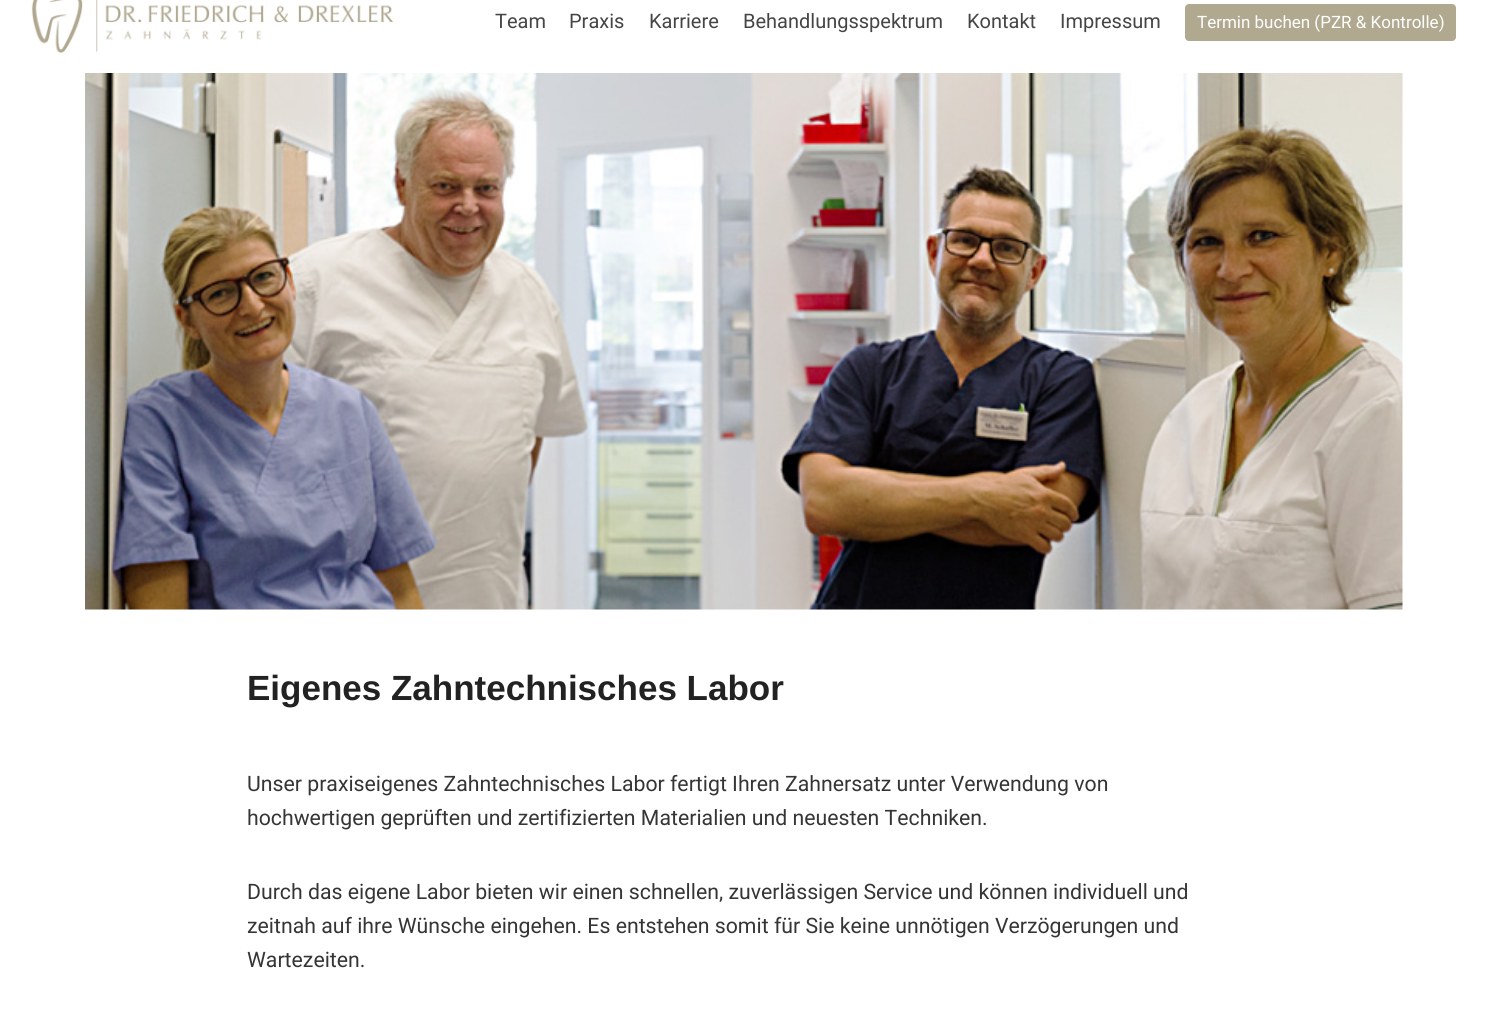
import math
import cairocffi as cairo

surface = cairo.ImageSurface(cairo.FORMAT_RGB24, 1486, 1013)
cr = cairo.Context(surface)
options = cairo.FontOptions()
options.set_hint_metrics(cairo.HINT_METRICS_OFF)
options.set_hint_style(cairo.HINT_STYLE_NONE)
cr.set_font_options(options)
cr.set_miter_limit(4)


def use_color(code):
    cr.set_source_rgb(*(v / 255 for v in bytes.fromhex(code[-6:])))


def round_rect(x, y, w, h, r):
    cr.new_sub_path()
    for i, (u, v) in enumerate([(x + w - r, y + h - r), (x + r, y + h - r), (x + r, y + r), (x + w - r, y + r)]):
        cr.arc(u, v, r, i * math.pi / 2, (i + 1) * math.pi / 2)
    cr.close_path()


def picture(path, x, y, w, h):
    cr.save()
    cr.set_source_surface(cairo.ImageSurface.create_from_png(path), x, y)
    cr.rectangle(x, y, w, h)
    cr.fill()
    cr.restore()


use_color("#ffffff")
cr.paint()
picture("img1.png", 31, 0, 362, 53)
cr.select_font_face("Roboto")
cr.set_font_size(20)
use_color("#454545")
cr.move_to(495, 28)
cr.show_text("Team")
cr.move_to(569, 28)
cr.show_text("Praxis")
cr.move_to(649, 28)
cr.show_text("Karriere")
cr.move_to(743, 28)
cr.show_text("Behandlungsspektrum")
cr.move_to(967, 28)
cr.show_text("Kontakt")
cr.move_to(1060, 28)
cr.show_text("Impressum")
use_color("#b0a88f")
round_rect(1185, 4, 271, 37, 4)
cr.fill()
cr.set_font_size(17)
use_color("#ffffff")
cr.move_to(1197, 28)
cr.show_text("Termin buchen (PZR & Kontrolle)")
picture("img2.png", 85, 73, 1318, 537)
cr.select_font_face("Liberation Sans", cairo.FONT_SLANT_NORMAL, cairo.FONT_WEIGHT_BOLD)
cr.set_font_size(35)
use_color("#222222")
cr.move_to(247, 700)
cr.show_text("Eigenes Zahntechnisches Labor")
cr.select_font_face("Roboto")
cr.set_font_size(21.25)
use_color("#353535")
cr.move_to(247, 791)
cr.show_text("Unser praxiseigenes Zahntechnisches Labor fertigt Ihren Zahnersatz unter Verwendung von")
cr.move_to(247, 825)
cr.show_text("hochwertigen geprüften und zertifizierten Materialien und neuesten Techniken.")
cr.move_to(247, 899)
cr.show_text("Durch das eigene Labor bieten wir einen schnellen, zuverlässigen Service und können individuell und")
cr.move_to(247, 933)
cr.show_text("zeitnah auf ihre Wünsche eingehen. Es entstehen somit für Sie keine unnötigen Verzögerungen und")
cr.move_to(247, 967)
cr.show_text("Wartezeiten.")
surface.write_to_png("result.png")
